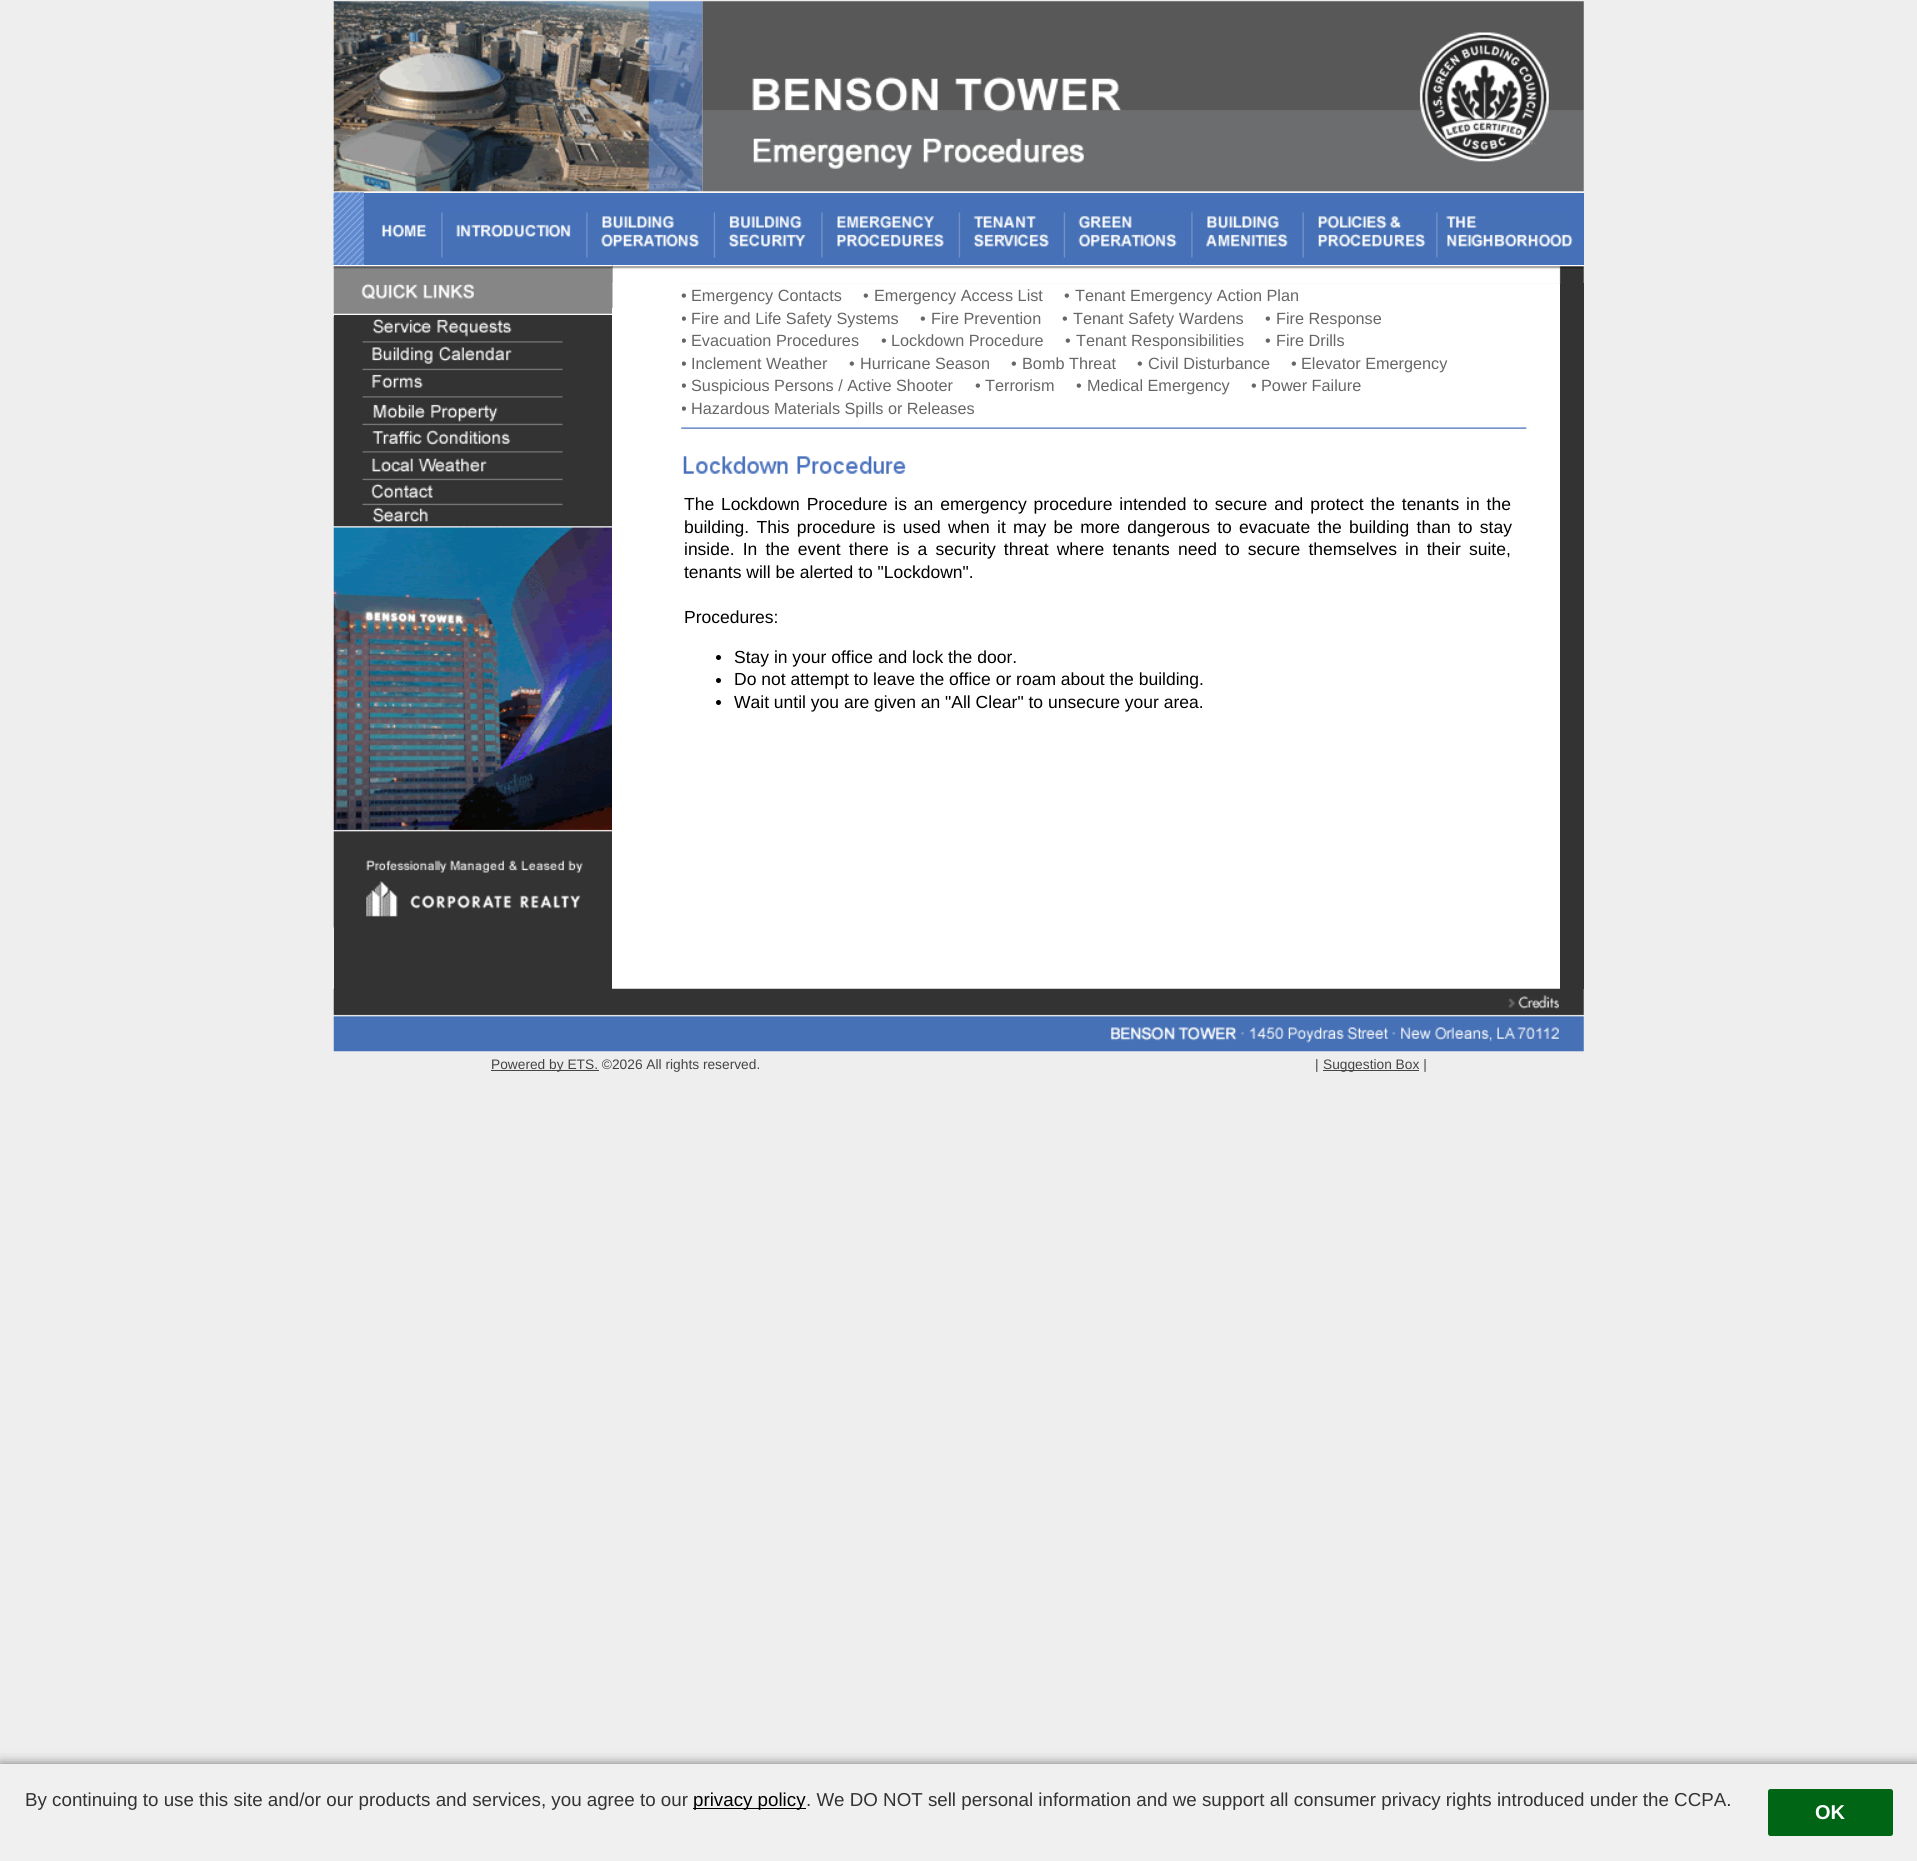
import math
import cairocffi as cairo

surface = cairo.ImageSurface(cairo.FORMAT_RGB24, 1917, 1861)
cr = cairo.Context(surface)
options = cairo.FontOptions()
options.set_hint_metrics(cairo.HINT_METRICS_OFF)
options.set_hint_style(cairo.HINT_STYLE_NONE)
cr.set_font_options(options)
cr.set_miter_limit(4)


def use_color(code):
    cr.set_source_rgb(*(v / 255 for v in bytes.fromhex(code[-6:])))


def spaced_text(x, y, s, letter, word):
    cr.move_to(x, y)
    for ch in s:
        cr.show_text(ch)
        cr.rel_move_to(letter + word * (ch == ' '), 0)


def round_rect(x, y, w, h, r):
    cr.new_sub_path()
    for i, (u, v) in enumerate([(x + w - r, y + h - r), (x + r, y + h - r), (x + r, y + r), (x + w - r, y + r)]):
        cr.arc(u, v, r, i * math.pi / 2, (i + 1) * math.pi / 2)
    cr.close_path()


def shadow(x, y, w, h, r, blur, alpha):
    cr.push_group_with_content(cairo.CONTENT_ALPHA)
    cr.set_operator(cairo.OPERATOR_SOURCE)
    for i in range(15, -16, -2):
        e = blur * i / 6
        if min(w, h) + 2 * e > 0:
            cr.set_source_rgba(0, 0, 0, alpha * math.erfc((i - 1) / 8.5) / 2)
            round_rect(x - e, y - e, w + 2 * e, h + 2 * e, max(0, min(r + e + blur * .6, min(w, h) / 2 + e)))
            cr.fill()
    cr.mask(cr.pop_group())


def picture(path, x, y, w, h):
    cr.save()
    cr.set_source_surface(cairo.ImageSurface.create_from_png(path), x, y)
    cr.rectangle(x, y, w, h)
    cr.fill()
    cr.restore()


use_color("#eeeeee")
cr.paint()
picture("img3.png", 333, 192, 31, 73)
picture("img1.png", 333, 1, 370, 192)
picture("img2.png", 702, 1, 882, 192)
picture("img4.png", 333, 192, 31, 73)
use_color("#4670b7")
cr.rectangle(364, 193, 1220, 72)
cr.fill()
picture("img5.png", 363, 196, 64, 69)
picture("img6.png", 441, 212, 130, 46)
picture("img7.png", 586, 212, 113, 46)
picture("img8.png", 713, 212, 93, 46)
picture("img9.png", 821, 212, 123, 46)
picture("img10.png", 958, 212, 91, 46)
picture("img11.png", 1063, 212, 114, 46)
picture("img12.png", 1191, 212, 97, 46)
picture("img13.png", 1302, 212, 124, 46)
picture("img14.png", 1436, 212, 137, 46)
use_color("#333333")
cr.rectangle(334, 265, 279, 724)
cr.fill()
use_color("#ffffff")
cr.rectangle(612, 283, 70, 706)
cr.fill()
picture("img15.png", 333, 265, 280, 50)
picture("img16.png", 333, 316, 230, 28)
picture("img17.png", 333, 343, 230, 29)
picture("img18.png", 333, 371, 230, 28)
picture("img19.png", 333, 398, 230, 29)
picture("img20.png", 333, 426, 230, 28)
picture("img21.png", 333, 453, 230, 29)
picture("img22.png", 333, 481, 230, 26)
picture("img23.png", 333, 506, 95, 21)
picture("img24.png", 333, 526, 279, 402)
use_color("#333333")
cr.rectangle(1560, 283, 24, 706)
cr.fill()
picture("img25.png", 612, 265, 972, 19)
use_color("#ffffff")
cr.rectangle(682, 284, 878, 135)
cr.fill()
cr.select_font_face("Liberation Sans")
cr.set_font_size(16.25)
use_color("#666666")
cr.move_to(681, 324)
cr.show_text("•")
cr.move_to(681, 346)
cr.show_text("•")
cr.move_to(681, 369)
cr.show_text("•")
cr.move_to(681, 391)
cr.show_text("•")
cr.move_to(681, 414)
cr.show_text("•")
use_color("#ffffff")
cr.rectangle(612, 308, 70, 103)
cr.fill()
use_color("#666666")
cr.move_to(681, 301)
cr.show_text("•")
cr.move_to(691, 301)
cr.show_text("Emergency Contacts")
cr.move_to(863, 301)
cr.show_text("•")
cr.move_to(874, 301)
cr.show_text("Emergency Access List")
cr.move_to(1064, 301)
cr.show_text("•")
cr.move_to(1075, 301)
cr.show_text("Tenant Emergency Action Plan")
cr.move_to(691, 324)
cr.show_text("Fire and Life Safety Systems")
cr.move_to(920, 324)
cr.show_text("•")
cr.move_to(931, 324)
cr.show_text("Fire Prevention")
cr.move_to(1062, 324)
cr.show_text("•")
cr.move_to(1073, 324)
cr.show_text("Tenant Safety Wardens")
cr.move_to(1265, 324)
cr.show_text("•")
cr.move_to(1276, 324)
cr.show_text("Fire Response")
cr.move_to(691, 346)
cr.show_text("Evacuation Procedures")
cr.move_to(881, 346)
cr.show_text("•")
cr.move_to(891, 346)
cr.show_text("Lockdown Procedure")
cr.move_to(1065, 346)
cr.show_text("•")
cr.move_to(1076, 346)
cr.show_text("Tenant Responsibilities")
cr.move_to(1265, 346)
cr.show_text("•")
cr.move_to(1276, 346)
cr.show_text("Fire Drills")
cr.move_to(691, 369)
cr.show_text("Inclement Weather")
cr.move_to(849, 369)
cr.show_text("•")
cr.move_to(860, 369)
cr.show_text("Hurricane Season")
cr.move_to(1011, 369)
cr.show_text("•")
cr.move_to(1022, 369)
cr.show_text("Bomb Threat")
cr.move_to(1137, 369)
cr.show_text("•")
cr.move_to(1148, 369)
cr.show_text("Civil Disturbance")
cr.move_to(1291, 369)
cr.show_text("•")
cr.move_to(1301, 369)
cr.show_text("Elevator Emergency")
cr.move_to(691, 391)
cr.show_text("Suspicious Persons / Active Shooter")
cr.move_to(975, 391)
cr.show_text("•")
cr.move_to(985, 391)
cr.show_text("Terrorism")
cr.move_to(1076, 391)
cr.show_text("•")
cr.move_to(1087, 391)
cr.show_text("Medical Emergency")
cr.move_to(1251, 391)
cr.show_text("•")
cr.move_to(1261, 391)
cr.show_text("Power Failure")
cr.move_to(691, 414)
cr.show_text("Hazardous Materials Spills or Releases")
picture("img26.png", 681, 419, 879, 21)
use_color("#ffffff")
cr.rectangle(682, 440, 878, 549)
cr.fill()
picture("img27.png", 683, 456, 223, 18)
cr.set_font_size(17.5)
use_color("#000000")
spaced_text(684, 510, "The Lockdown Procedure is an emergency procedure intended to secure and protect the tenants in the", 0, 2)
spaced_text(684, 533, "building. This procedure is used when it may be more dangerous to evacuate the building than to stay", 0, 2.4)
spaced_text(684, 555, "inside. In the event there is a security threat where tenants need to secure themselves in their suite,", 0, 3.25)
cr.move_to(684, 578)
cr.show_text("tenants will be alerted to \"Lockdown\".")
cr.move_to(684, 623)
cr.show_text("Procedures:")
cr.new_path()
cr.arc(718.5, 657.5, 2.5, 0, 2 * math.pi)
cr.fill()
cr.move_to(734, 663)
cr.show_text("Stay in your office and lock the door.")
cr.new_path()
cr.arc(718.5, 680.5, 2.5, 0, 2 * math.pi)
cr.fill()
cr.move_to(734, 685)
cr.show_text("Do not attempt to leave the office or roam about the building.")
cr.new_path()
cr.arc(718.5, 702.5, 2.5, 0, 2 * math.pi)
cr.fill()
cr.move_to(734, 708)
cr.show_text("Wait until you are given an \"All Clear\" to unsecure your area.")
picture("img28.png", 333, 988, 1251, 64)
use_color("#444444")
cr.rectangle(491, 1070, 108, 1)
cr.fill()
cr.set_font_size(13.75)
cr.move_to(491, 1069)
cr.show_text("Powered by ETS. ©2026 All rights reserved.")
cr.move_to(1315, 1069)
cr.show_text("|")
cr.rectangle(1323, 1070, 96, 1)
cr.fill()
cr.move_to(1323, 1069)
cr.show_text("Suggestion Box |")
use_color("#000000")
shadow(0, 1764, 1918, 97, 0, 6, 0.5)
use_color("#f0f0f0")
cr.rectangle(0, 1764, 1917, 97)
cr.fill()
cr.set_font_size(18.75)
use_color("#333333")
cr.move_to(25, 1806)
cr.show_text("By continuing to use this site and/or our products and services, you agree to our")
use_color("#000000")
cr.rectangle(693, 1808, 113, 1)
cr.fill()
cr.move_to(693, 1806)
cr.show_text("privacy policy")
use_color("#333333")
cr.move_to(806, 1806)
cr.show_text(". We DO NOT sell personal information and we support all consumer privacy rights introduced under the CCPA.")
use_color("#006616")
round_rect(1768, 1789, 125, 47, 2.5)
cr.fill()
cr.select_font_face("Liberation Sans", cairo.FONT_SLANT_NORMAL, cairo.FONT_WEIGHT_BOLD)
cr.set_font_size(20)
use_color("#ffffff")
cr.move_to(1815, 1819)
cr.show_text("OK")
surface.write_to_png("result.png")
